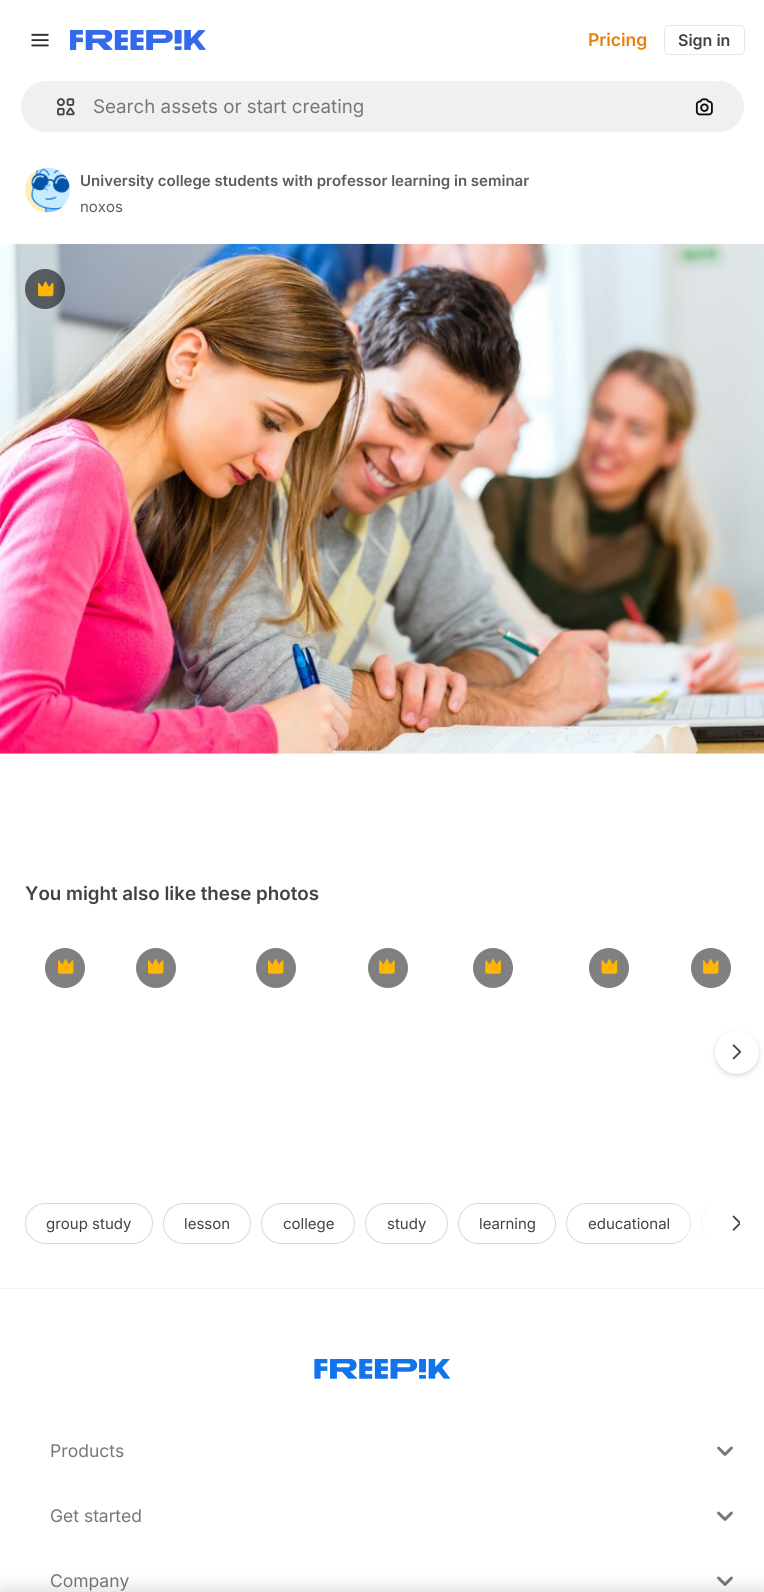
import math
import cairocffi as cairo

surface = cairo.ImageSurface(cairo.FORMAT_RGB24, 764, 1592)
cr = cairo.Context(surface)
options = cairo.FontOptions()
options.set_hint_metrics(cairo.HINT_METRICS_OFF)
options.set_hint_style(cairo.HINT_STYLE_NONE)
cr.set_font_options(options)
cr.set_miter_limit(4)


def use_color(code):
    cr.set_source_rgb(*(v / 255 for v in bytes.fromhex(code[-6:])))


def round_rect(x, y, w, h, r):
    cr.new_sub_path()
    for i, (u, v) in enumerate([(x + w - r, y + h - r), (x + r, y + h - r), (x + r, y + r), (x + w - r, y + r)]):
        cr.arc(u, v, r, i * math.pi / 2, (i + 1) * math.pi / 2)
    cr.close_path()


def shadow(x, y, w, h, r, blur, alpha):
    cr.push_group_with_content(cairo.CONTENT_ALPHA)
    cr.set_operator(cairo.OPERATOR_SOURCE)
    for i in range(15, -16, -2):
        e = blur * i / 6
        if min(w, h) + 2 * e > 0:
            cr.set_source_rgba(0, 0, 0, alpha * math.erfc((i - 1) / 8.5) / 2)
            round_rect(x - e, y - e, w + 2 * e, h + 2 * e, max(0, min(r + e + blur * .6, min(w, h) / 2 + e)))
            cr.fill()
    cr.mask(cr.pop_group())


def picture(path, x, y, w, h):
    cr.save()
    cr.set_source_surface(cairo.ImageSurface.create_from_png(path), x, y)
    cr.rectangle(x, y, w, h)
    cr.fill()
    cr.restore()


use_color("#ffffff")
cr.paint()
picture("img1.png", 31, 33, 18, 14)
picture("img2.png", 70, 30, 136, 20)
cr.select_font_face("Inter SemiBold")
cr.set_font_size(17.5)
use_color("#ea7e11")
cr.move_to(588, 46)
cr.show_text("Pricing")
round_rect(664.5, 25.5, 80, 29, 4.5)
use_color("#e7e7e7")
cr.set_line_width(1)
cr.stroke()
cr.set_font_size(16)
use_color("#424242")
cr.move_to(678, 46)
cr.show_text("Sign in")
use_color("#f0f0f0")
round_rect(20.5, 80.5, 724, 52, 26)
cr.fill_preserve()
use_color("#ffffff")
cr.stroke()
picture("img3.png", 56, 98, 19, 18)
cr.select_font_face("Inter")
cr.set_font_size(18.75)
use_color("#777777")
cr.move_to(93, 113)
cr.show_text("Search assets or start creating")
picture("img4.png", 695, 98, 18, 18)
picture("img5.png", 25, 167, 45, 46)
cr.select_font_face("Inter SemiBold")
cr.set_font_size(15)
use_color("#5c5c5c")
cr.move_to(80, 186)
cr.show_text("University college students with professor learning in seminar")
cr.select_font_face("Inter")
cr.move_to(80, 212)
cr.show_text("noxos")
picture("img6.png", 0, 243, 764, 511)
cr.set_source_rgba(0.051, 0.051, 0.051, 0.6)
cr.arc(45, 289, 20, 0, 2 * math.pi)
cr.fill()
picture("img7.png", 38, 281, 16, 16)
cr.select_font_face("Inter SemiBold")
cr.set_font_size(18.75)
use_color("#424242")
cr.move_to(25, 900)
cr.show_text("You might also like these photos")
use_color("#808080")
cr.new_path()
cr.arc(65, 968, 20, 0, 2 * math.pi)
cr.fill()
picture("img8.png", 58, 959, 16, 15)
cr.arc(156, 968, 20, 0, 2 * math.pi)
cr.fill()
picture("img8.png", 148, 959, 16, 15)
cr.arc(276, 968, 20, 0, 2 * math.pi)
cr.fill()
picture("img8.png", 268, 959, 16, 15)
cr.arc(388, 968, 20, 0, 2 * math.pi)
cr.fill()
picture("img9.png", 379, 959, 16, 15)
cr.arc(493, 968, 20, 0, 2 * math.pi)
cr.fill()
picture("img10.png", 485, 959, 16, 15)
cr.arc(609, 968, 20, 0, 2 * math.pi)
cr.fill()
picture("img11.png", 601, 959, 17, 15)
cr.arc(711, 968, 20, 0, 2 * math.pi)
cr.fill()
picture("img8.png", 703, 959, 16, 15)
use_color("#374957")
shadow(715, 1033, 44, 43, 21.5, 3, 0.15)
shadow(715, 1031, 44, 44, 22, 1, 0.1)
use_color("#ffffff")
cr.arc(737, 1052, 22, 0, 2 * math.pi)
cr.fill()
picture("img12.png", 732, 1044, 10, 16)
round_rect(25.5, 1203.5, 127, 40, 20)
use_color("#d8d8d8")
cr.stroke()
cr.select_font_face("Inter")
cr.set_font_size(15)
use_color("#424242")
cr.move_to(46, 1229)
cr.show_text("group study")
round_rect(163.5, 1203.5, 87, 40, 20)
use_color("#d8d8d8")
cr.stroke()
use_color("#424242")
cr.move_to(184, 1229)
cr.show_text("lesson")
round_rect(261.5, 1203.5, 93, 40, 20)
use_color("#d8d8d8")
cr.stroke()
use_color("#424242")
cr.move_to(283, 1229)
cr.show_text("college")
round_rect(365.5, 1203.5, 82, 40, 20)
use_color("#d8d8d8")
cr.stroke()
use_color("#424242")
cr.move_to(387, 1229)
cr.show_text("study")
round_rect(458.5, 1203.5, 97, 40, 20)
use_color("#d8d8d8")
cr.stroke()
use_color("#424242")
cr.move_to(479, 1229)
cr.show_text("learning")
round_rect(566.5, 1203.5, 124, 40, 20)
use_color("#d8d8d8")
cr.stroke()
use_color("#424242")
cr.move_to(588, 1229)
cr.show_text("educational")
cr.save()
cr.rectangle(25, 1203, 715, 41)
cr.clip()
round_rect(701.5, 1203.5, 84, 40, 20)
use_color("#d8d8d8")
cr.stroke()
cr.restore()
use_color("#ffffff")
cr.rectangle(715, 1203, 25, 41)
cr.fill()
gradient = cairo.LinearGradient(715, 1223, 671, 1223)
gradient.add_color_stop_rgba(0, 1, 1, 1, 1)
gradient.add_color_stop_rgba(1, 1, 1, 1, 0)
cr.set_source(gradient)
cr.rectangle(675, 1204, 40, 39)
cr.fill()
picture("img13.png", 732, 1215, 8, 16)
use_color("#f0f0f0")
cr.rectangle(0, 1288, 764, 1)
cr.fill()
picture("img14.png", 314, 1359, 136, 20)
cr.set_font_size(17.5)
use_color("#777777")
cr.move_to(50, 1457)
cr.show_text("Products")
picture("img15.png", 717, 1446, 16, 10)
cr.move_to(50, 1522)
cr.show_text("Get started")
picture("img15.png", 717, 1511, 16, 10)
cr.move_to(50, 1587)
cr.show_text("Company")
picture("img15.png", 717, 1576, 16, 10)
use_color("#000000")
shadow(0, 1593, 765, 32, 0, 11, 0.2)
surface.write_to_png("result.png")
